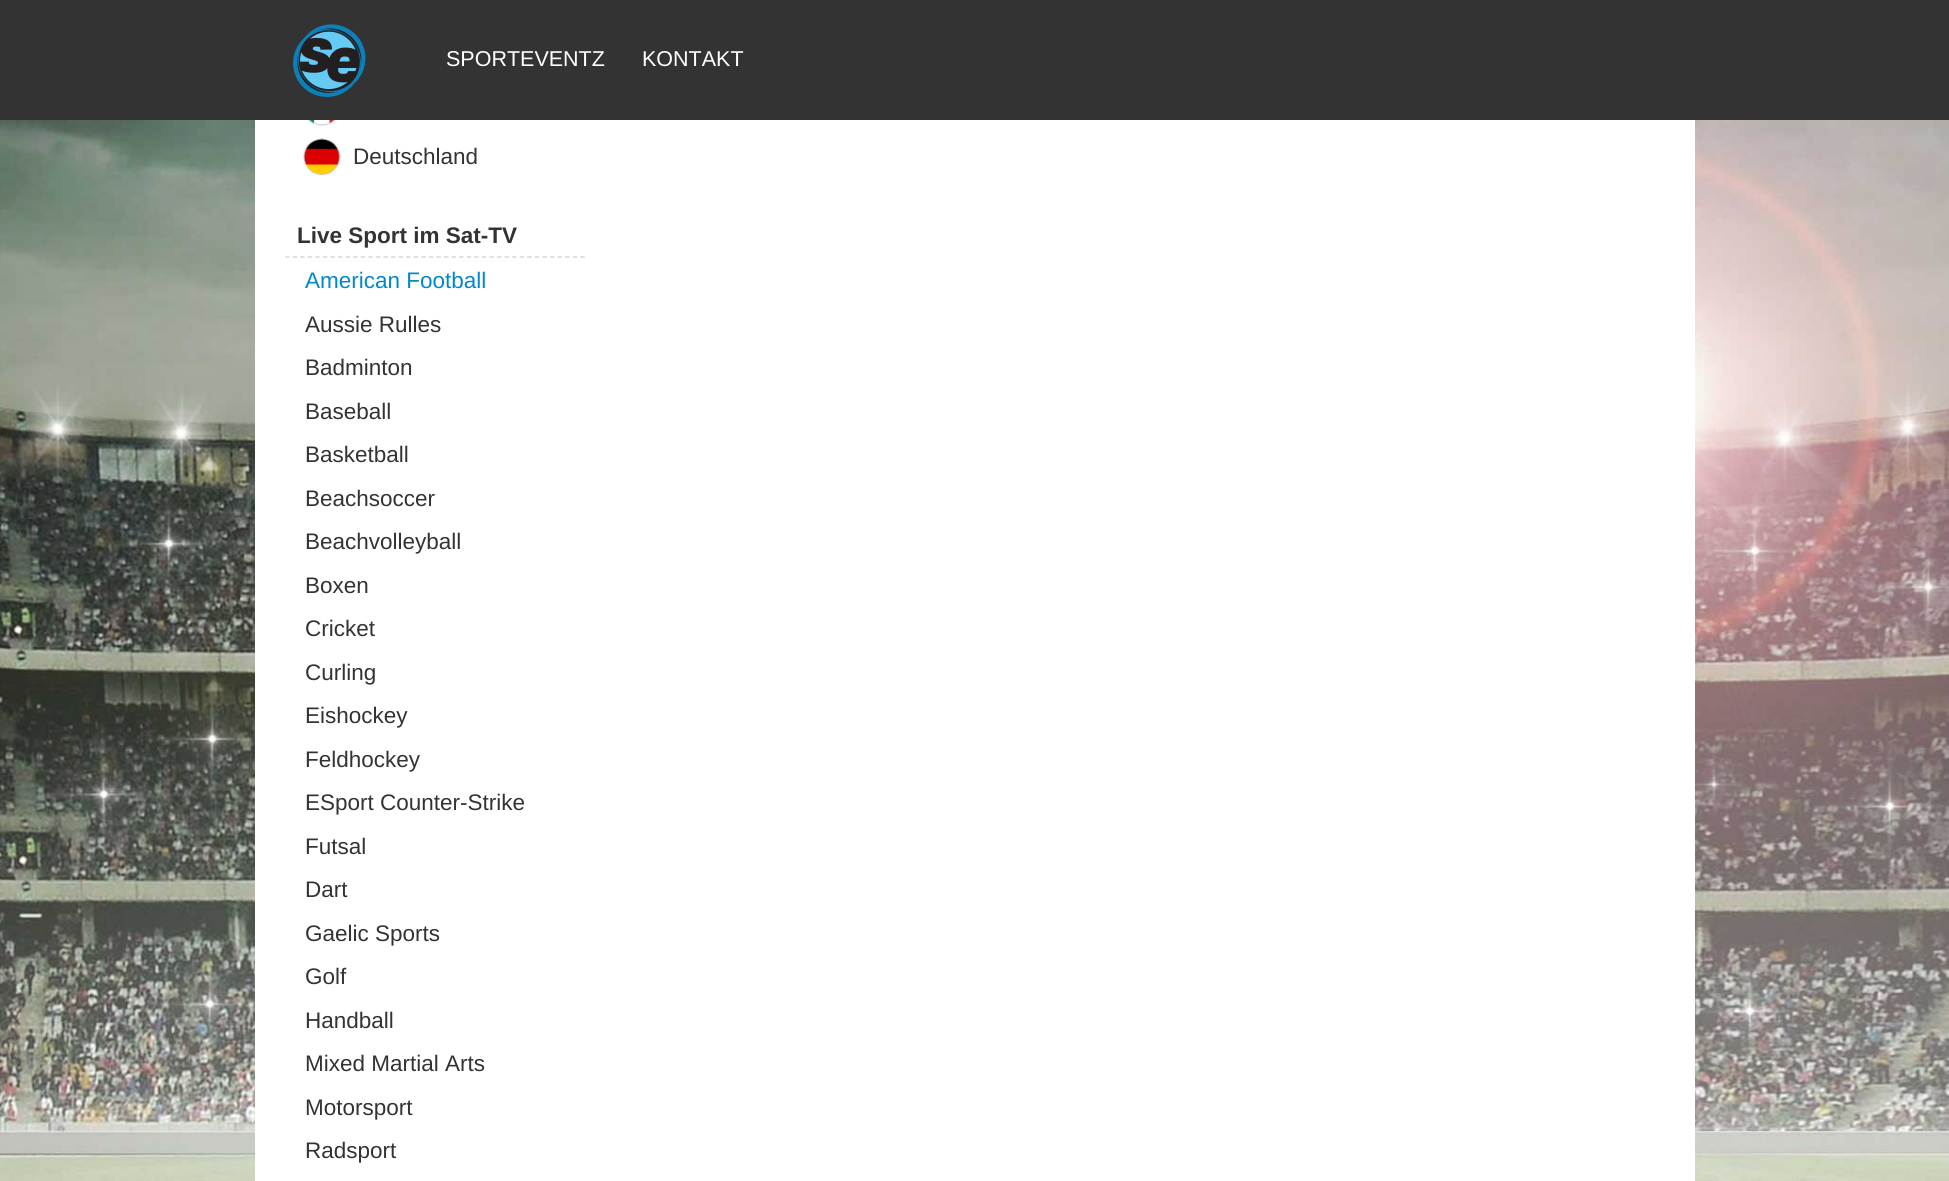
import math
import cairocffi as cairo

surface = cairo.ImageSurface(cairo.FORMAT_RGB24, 1949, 1181)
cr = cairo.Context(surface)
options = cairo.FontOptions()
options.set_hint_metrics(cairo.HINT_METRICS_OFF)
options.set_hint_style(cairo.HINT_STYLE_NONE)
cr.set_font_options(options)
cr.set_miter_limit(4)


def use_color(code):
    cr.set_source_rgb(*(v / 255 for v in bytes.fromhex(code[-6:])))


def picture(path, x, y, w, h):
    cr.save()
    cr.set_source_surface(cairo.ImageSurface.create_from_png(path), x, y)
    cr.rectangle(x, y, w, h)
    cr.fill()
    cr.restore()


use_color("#ffffff")
cr.paint()
picture("img1.png", 0, 120, 1949, 1061)
use_color("#333333")
cr.rectangle(0, 0, 1949, 120)
cr.fill()
picture("img2.png", 293, 24, 73, 73)
cr.select_font_face("Liberation Sans")
cr.set_font_size(21.5)
use_color("#ffffff")
cr.move_to(446, 66)
cr.show_text("SPORTEVENTZ")
cr.move_to(642, 66)
cr.show_text("KONTAKT")
cr.rectangle(255, 120, 1440, 1061)
cr.fill()
picture("img3.png", 308, 120, 27, 6)
picture("img4.png", 303, 138, 38, 38)
cr.set_font_size(22.5)
use_color("#333333")
cr.move_to(353, 164)
cr.show_text("Deutschland")
cr.new_path()
cr.move_to(285, 257)
cr.line_to(585, 257)
use_color("#d9d9d9")
cr.set_line_width(1.5)
cr.set_dash([4.5, 3.07])
cr.stroke()
cr.select_font_face("Liberation Sans", cairo.FONT_SLANT_NORMAL, cairo.FONT_WEIGHT_BOLD)
use_color("#333333")
cr.move_to(297, 243)
cr.show_text("Live Sport im Sat-TV")
cr.select_font_face("Liberation Sans")
use_color("#0088cc")
cr.move_to(305, 288)
cr.show_text("American Football")
use_color("#333333")
cr.move_to(305, 332)
cr.show_text("Aussie Rulles")
cr.move_to(305, 375)
cr.show_text("Badminton")
cr.move_to(305, 419)
cr.show_text("Baseball")
cr.move_to(305, 462)
cr.show_text("Basketball")
cr.move_to(305, 506)
cr.show_text("Beachsoccer")
cr.move_to(305, 549)
cr.show_text("Beachvolleyball")
cr.move_to(305, 593)
cr.show_text("Boxen")
cr.move_to(305, 636)
cr.show_text("Cricket")
cr.move_to(305, 680)
cr.show_text("Curling")
cr.move_to(305, 723)
cr.show_text("Eishockey")
cr.move_to(305, 767)
cr.show_text("Feldhockey")
cr.move_to(305, 810)
cr.show_text("ESport Counter-Strike")
cr.move_to(305, 854)
cr.show_text("Futsal")
cr.move_to(305, 897)
cr.show_text("Dart")
cr.move_to(305, 941)
cr.show_text("Gaelic Sports")
cr.move_to(305, 984)
cr.show_text("Golf")
cr.move_to(305, 1028)
cr.show_text("Handball")
cr.move_to(305, 1071)
cr.show_text("Mixed Martial Arts")
cr.move_to(305, 1115)
cr.show_text("Motorsport")
cr.move_to(305, 1158)
cr.show_text("Radsport")
surface.write_to_png("result.png")
